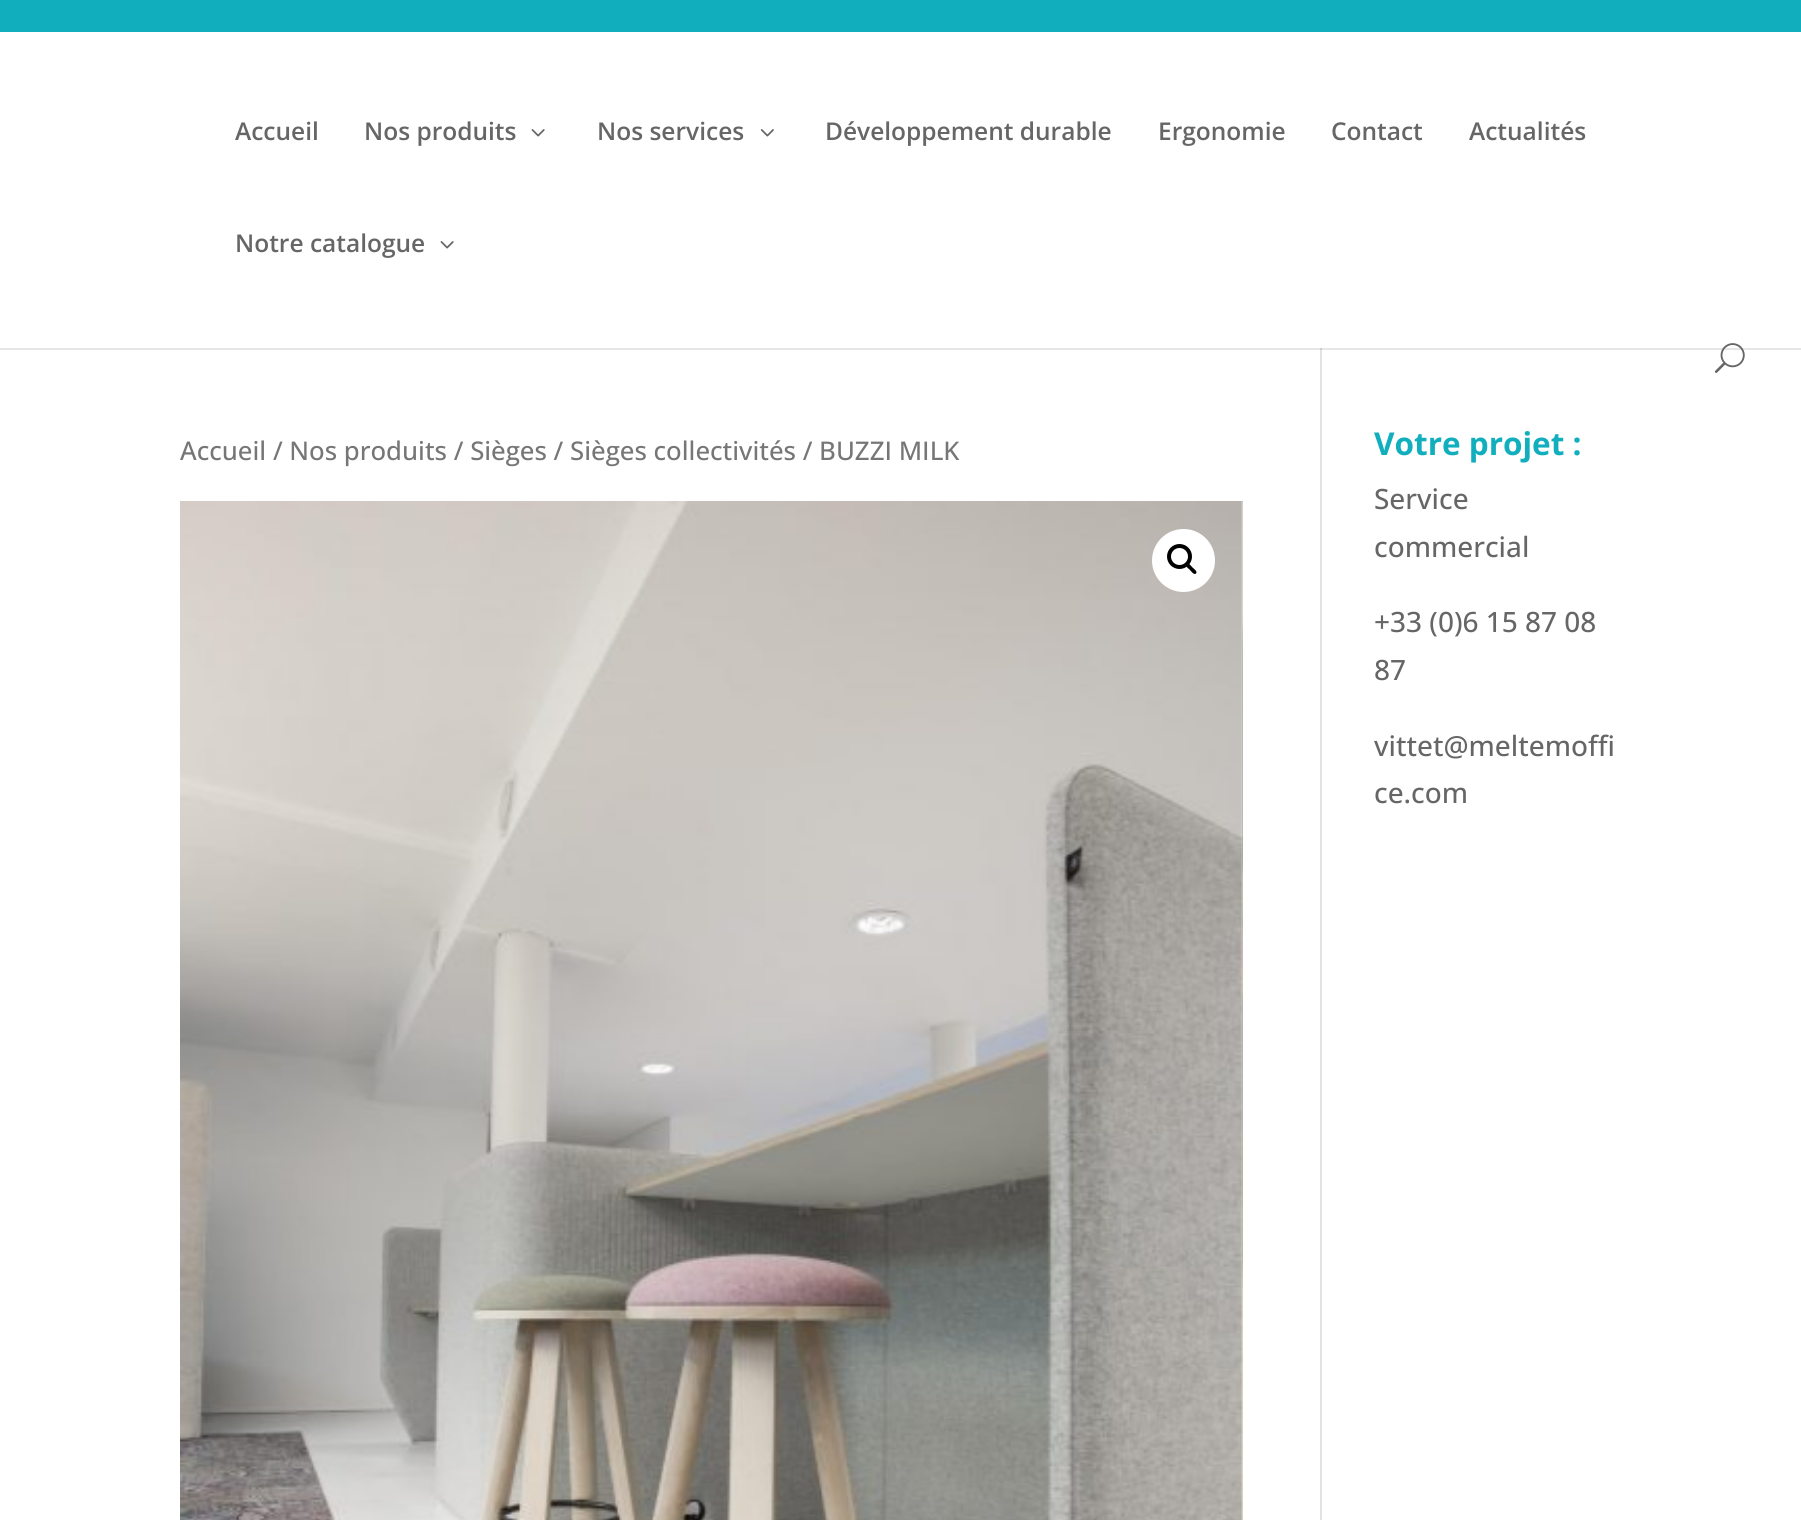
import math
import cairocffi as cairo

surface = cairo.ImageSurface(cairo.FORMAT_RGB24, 1801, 1520)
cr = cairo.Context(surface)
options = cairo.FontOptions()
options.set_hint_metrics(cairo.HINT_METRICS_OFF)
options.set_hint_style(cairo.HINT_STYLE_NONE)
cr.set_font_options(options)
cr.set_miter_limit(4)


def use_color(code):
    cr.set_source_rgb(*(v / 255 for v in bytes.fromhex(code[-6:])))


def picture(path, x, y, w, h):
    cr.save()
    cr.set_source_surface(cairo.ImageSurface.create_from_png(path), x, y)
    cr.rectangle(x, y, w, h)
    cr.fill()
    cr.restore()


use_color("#ffffff")
cr.paint()
use_color("#11afbe")
cr.rectangle(0, 0, 1801, 32)
cr.fill()
use_color("#e2e2e2")
cr.rectangle(1320, 348, 2, 1172)
cr.fill()
cr.set_source_rgba(0, 0, 0, 0.1)
cr.new_path()
cr.move_to(0, 348)
cr.line_to(0, 350)
cr.line_to(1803, 350)
cr.line_to(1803, 33)
cr.line_to(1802, 33)
cr.line_to(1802, 348)
cr.close_path()
cr.fill()
cr.select_font_face("Open Sans SemiBold")
cr.set_font_size(24.5)
use_color("#666666")
cr.move_to(235, 140)
cr.show_text("Accueil")
cr.move_to(364, 140)
cr.show_text("Nos produits")
picture("img1.png", 531, 129, 14, 8)
cr.move_to(597, 140)
cr.show_text("Nos services")
picture("img2.png", 760, 129, 14, 8)
cr.move_to(825, 140)
cr.show_text("Développement durable")
cr.move_to(1158, 140)
cr.show_text("Ergonomie")
cr.move_to(1331, 140)
cr.show_text("Contact")
cr.move_to(1469, 140)
cr.show_text("Actualités")
cr.move_to(235, 252)
cr.show_text("Notre catalogue")
picture("img1.png", 440, 241, 14, 8)
picture("img3.png", 1714, 343, 31, 30)
cr.select_font_face("Open Sans Medium")
cr.set_font_size(25.75)
use_color("#767676")
cr.move_to(180, 460)
cr.show_text("Accueil / Nos produits / Sièges / Sièges collectivités / BUZZI MILK")
picture("img4.png", 1241, 500, 2, 1020)
picture("img5.png", 180, 501, 1063, 1019)
use_color("#ffffff")
cr.arc(1183.5, 560.5, 31.5, 0, 2 * math.pi)
cr.fill()
cr.arc(1179.5, 556.5, 10.5, 0, 2 * math.pi)
use_color("#000000")
cr.set_line_width(4)
cr.stroke()
cr.new_path()
cr.move_to(1186, 563.5)
cr.curve_to(1188, 561.5, 1191.5, 566.5, 1192.5, 567.5)
cr.curve_to(1193.5, 568.5, 1198, 571.5, 1196, 573.5)
cr.curve_to(1194, 575.5, 1191, 571, 1190, 570)
cr.curve_to(1189, 569, 1184, 565.5, 1186, 563.5)
cr.close_path()
cr.fill()
cr.select_font_face("Open Sans", cairo.FONT_SLANT_NORMAL, cairo.FONT_WEIGHT_BOLD)
cr.set_font_size(31.5)
use_color("#11afbe")
cr.move_to(1374, 455)
cr.show_text("Votre projet :")
cr.select_font_face("Open Sans Medium")
cr.set_font_size(28)
use_color("#666666")
cr.move_to(1374, 509)
cr.show_text("Service")
cr.move_to(1374, 557)
cr.show_text("commercial")
cr.move_to(1374, 632)
cr.show_text("+33 (0)6 15 87 08")
cr.move_to(1374, 680)
cr.show_text("87")
cr.move_to(1374, 756)
cr.show_text("vittet@meltemoffi")
cr.move_to(1374, 803)
cr.show_text("ce.com")
surface.write_to_png("result.png")
